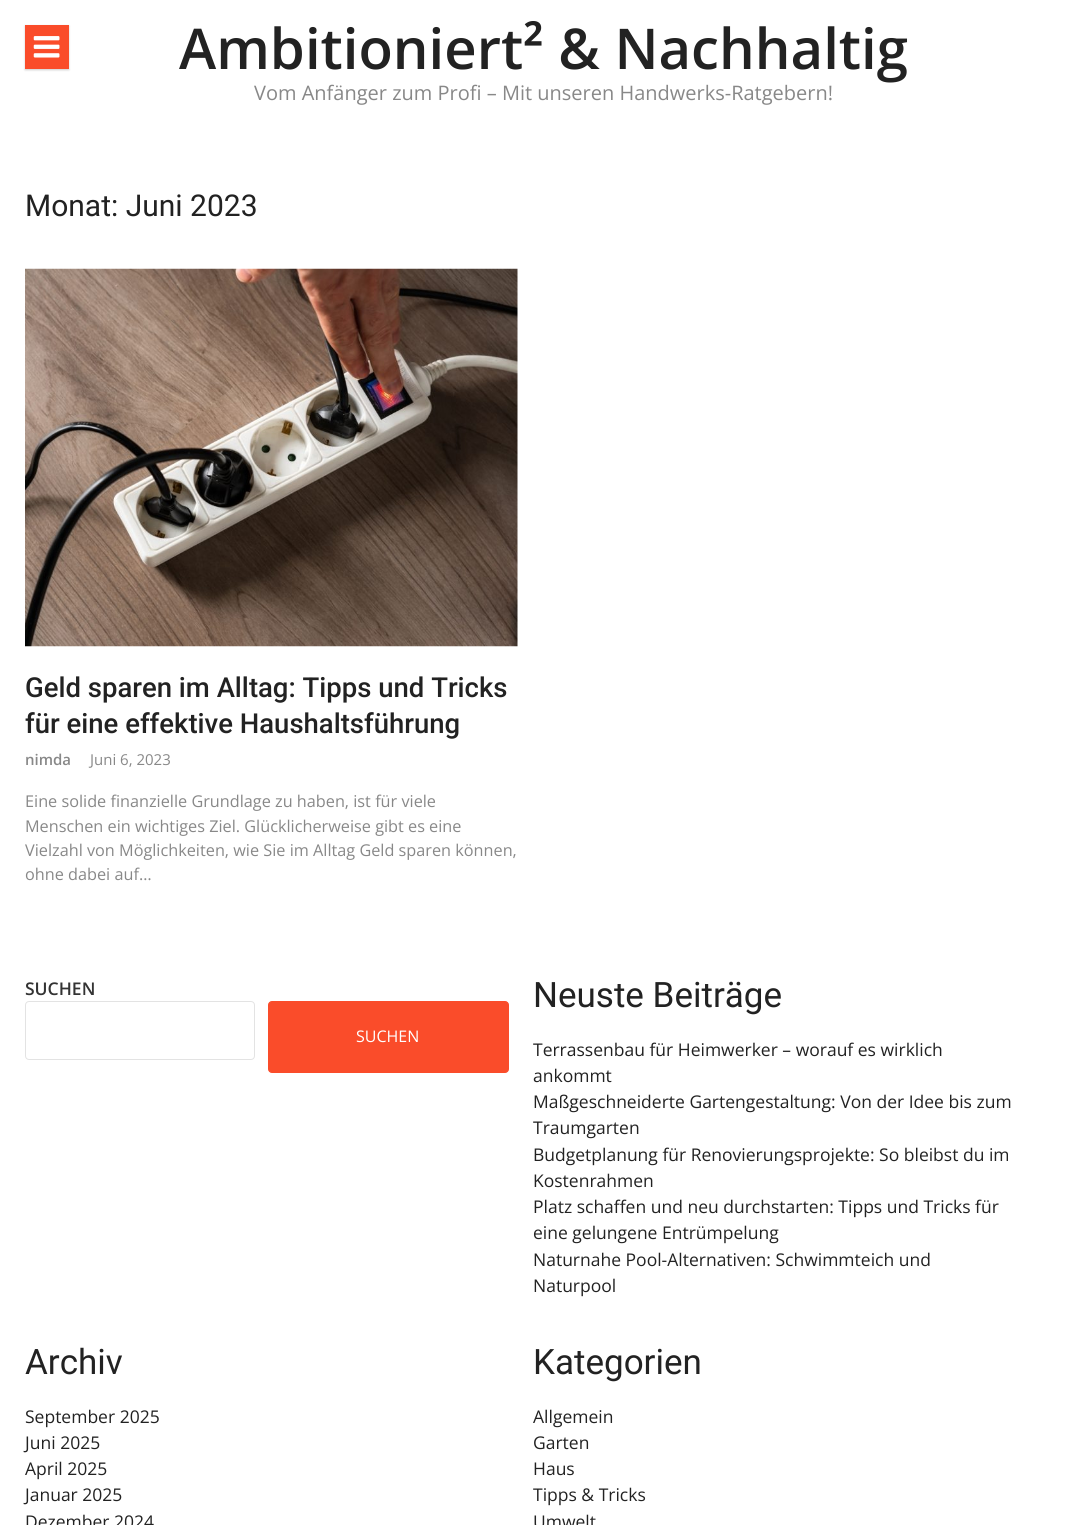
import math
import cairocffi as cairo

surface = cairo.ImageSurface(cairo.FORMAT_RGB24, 1087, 1525)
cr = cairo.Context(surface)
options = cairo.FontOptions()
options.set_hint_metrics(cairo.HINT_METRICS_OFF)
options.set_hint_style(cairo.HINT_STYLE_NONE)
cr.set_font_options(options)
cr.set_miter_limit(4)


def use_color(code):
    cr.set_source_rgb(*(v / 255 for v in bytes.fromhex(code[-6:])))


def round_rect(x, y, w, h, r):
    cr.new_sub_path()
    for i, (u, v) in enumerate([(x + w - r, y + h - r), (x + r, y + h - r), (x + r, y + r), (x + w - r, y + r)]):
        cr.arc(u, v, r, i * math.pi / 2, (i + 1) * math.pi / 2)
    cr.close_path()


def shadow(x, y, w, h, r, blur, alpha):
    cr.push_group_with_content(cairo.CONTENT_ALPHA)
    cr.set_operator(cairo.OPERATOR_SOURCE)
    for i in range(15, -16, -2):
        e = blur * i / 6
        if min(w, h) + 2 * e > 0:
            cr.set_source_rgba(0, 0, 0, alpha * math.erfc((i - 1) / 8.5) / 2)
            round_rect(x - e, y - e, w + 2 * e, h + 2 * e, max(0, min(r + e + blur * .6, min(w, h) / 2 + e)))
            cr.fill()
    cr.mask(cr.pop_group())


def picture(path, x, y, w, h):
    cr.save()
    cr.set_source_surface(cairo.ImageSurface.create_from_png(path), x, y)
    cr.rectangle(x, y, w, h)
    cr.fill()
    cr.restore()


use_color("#ffffff")
cr.paint()
use_color("#000000")
shadow(25, 26, 44, 44, 0, 1, 0.2)
use_color("#fa4c2a")
cr.rectangle(25, 25, 44, 44)
cr.fill()
picture("img1.png", 33, 36, 27, 22)
cr.select_font_face("Open Sans SemiBold")
cr.set_font_size(56.25)
use_color("#222222")
cr.move_to(179, 69)
cr.show_text("Ambitioniert² & Nachhaltig")
cr.select_font_face("Open Sans")
cr.set_font_size(20)
use_color("#888888")
cr.move_to(254, 100)
cr.show_text("Vom Anfänger zum Profi – Mit unseren Handwerks-Ratgebern!")
cr.select_font_face("Roboto")
cr.set_font_size(30)
use_color("#222222")
cr.move_to(25, 216)
cr.show_text("Monat: Juni 2023")
picture("img2.png", 25, 268, 493, 379)
cr.select_font_face("Roboto Medium")
cr.set_font_size(27.5)
cr.move_to(25, 697)
cr.show_text("Geld sparen im Alltag: Tipps und Tricks")
cr.move_to(25, 733)
cr.show_text("für eine effektive Haushaltsführung")
cr.select_font_face("Open Sans SemiBold")
cr.set_font_size(15)
use_color("#888888")
cr.move_to(25, 765)
cr.show_text("nimda")
cr.select_font_face("Open Sans")
cr.move_to(90, 765)
cr.show_text("Juni 6, 2023")
cr.set_font_size(16.25)
cr.move_to(25, 807)
cr.show_text("Eine solide finanzielle Grundlage zu haben, ist für viele")
cr.move_to(25, 832)
cr.show_text("Menschen ein wichtiges Ziel. Glücklicherweise gibt es eine")
cr.move_to(25, 856)
cr.show_text("Vielzahl von Möglichkeiten, wie Sie im Alltag Geld sparen können,")
cr.move_to(25, 880)
cr.show_text("ohne dabei auf…")
cr.select_font_face("Open Sans SemiBold")
cr.set_font_size(17.5)
use_color("#333333")
cr.move_to(25, 995)
cr.show_text("SUCHEN")
round_rect(25.5, 1001.5, 229, 58, 3.5)
use_color("#e3e3e3")
cr.set_line_width(1)
cr.stroke()
use_color("#fa4c2a")
round_rect(268.5, 1001.5, 240, 71, 3.5)
cr.fill_preserve()
cr.stroke()
cr.select_font_face("Open Sans")
cr.set_font_size(16)
use_color("#ffffff")
cr.move_to(356, 1042)
cr.show_text("SUCHEN")
cr.select_font_face("Roboto")
cr.set_font_size(35)
use_color("#222222")
cr.move_to(533, 1007)
cr.show_text("Neuste Beiträge")
cr.select_font_face("Open Sans")
cr.set_font_size(17.5)
cr.move_to(533, 1056)
cr.show_text("Terrassenbau für Heimwerker – worauf es wirklich")
cr.move_to(533, 1082)
cr.show_text("ankommt")
cr.move_to(533, 1108)
cr.show_text("Maßgeschneiderte Gartengestaltung: Von der Idee bis zum")
cr.move_to(533, 1134)
cr.show_text("Traumgarten")
cr.move_to(533, 1161)
cr.show_text("Budgetplanung für Renovierungsprojekte: So bleibst du im")
cr.move_to(533, 1187)
cr.show_text("Kostenrahmen")
cr.move_to(533, 1213)
cr.show_text("Platz schaffen und neu durchstarten: Tipps und Tricks für")
cr.move_to(533, 1239)
cr.show_text("eine gelungene Entrümpelung")
cr.move_to(533, 1266)
cr.show_text("Naturnahe Pool-Alternativen: Schwimmteich und")
cr.move_to(533, 1292)
cr.show_text("Naturpool")
cr.select_font_face("Roboto")
cr.set_font_size(35)
cr.move_to(25, 1374)
cr.show_text("Archiv")
cr.select_font_face("Open Sans")
cr.set_font_size(17.5)
cr.move_to(25, 1423)
cr.show_text("September 2025")
cr.move_to(25, 1449)
cr.show_text("Juni 2025")
cr.move_to(25, 1475)
cr.show_text("April 2025")
cr.move_to(25, 1501)
cr.show_text("Januar 2025")
cr.move_to(25, 1528)
cr.show_text("Dezember 2024")
cr.select_font_face("Roboto")
cr.set_font_size(35)
cr.move_to(533, 1374)
cr.show_text("Kategorien")
cr.select_font_face("Open Sans")
cr.set_font_size(17.5)
cr.move_to(533, 1423)
cr.show_text("Allgemein")
cr.move_to(533, 1449)
cr.show_text("Garten")
cr.move_to(533, 1475)
cr.show_text("Haus")
cr.move_to(533, 1501)
cr.show_text("Tipps & Tricks")
cr.move_to(533, 1528)
cr.show_text("Umwelt")
surface.write_to_png("result.png")
